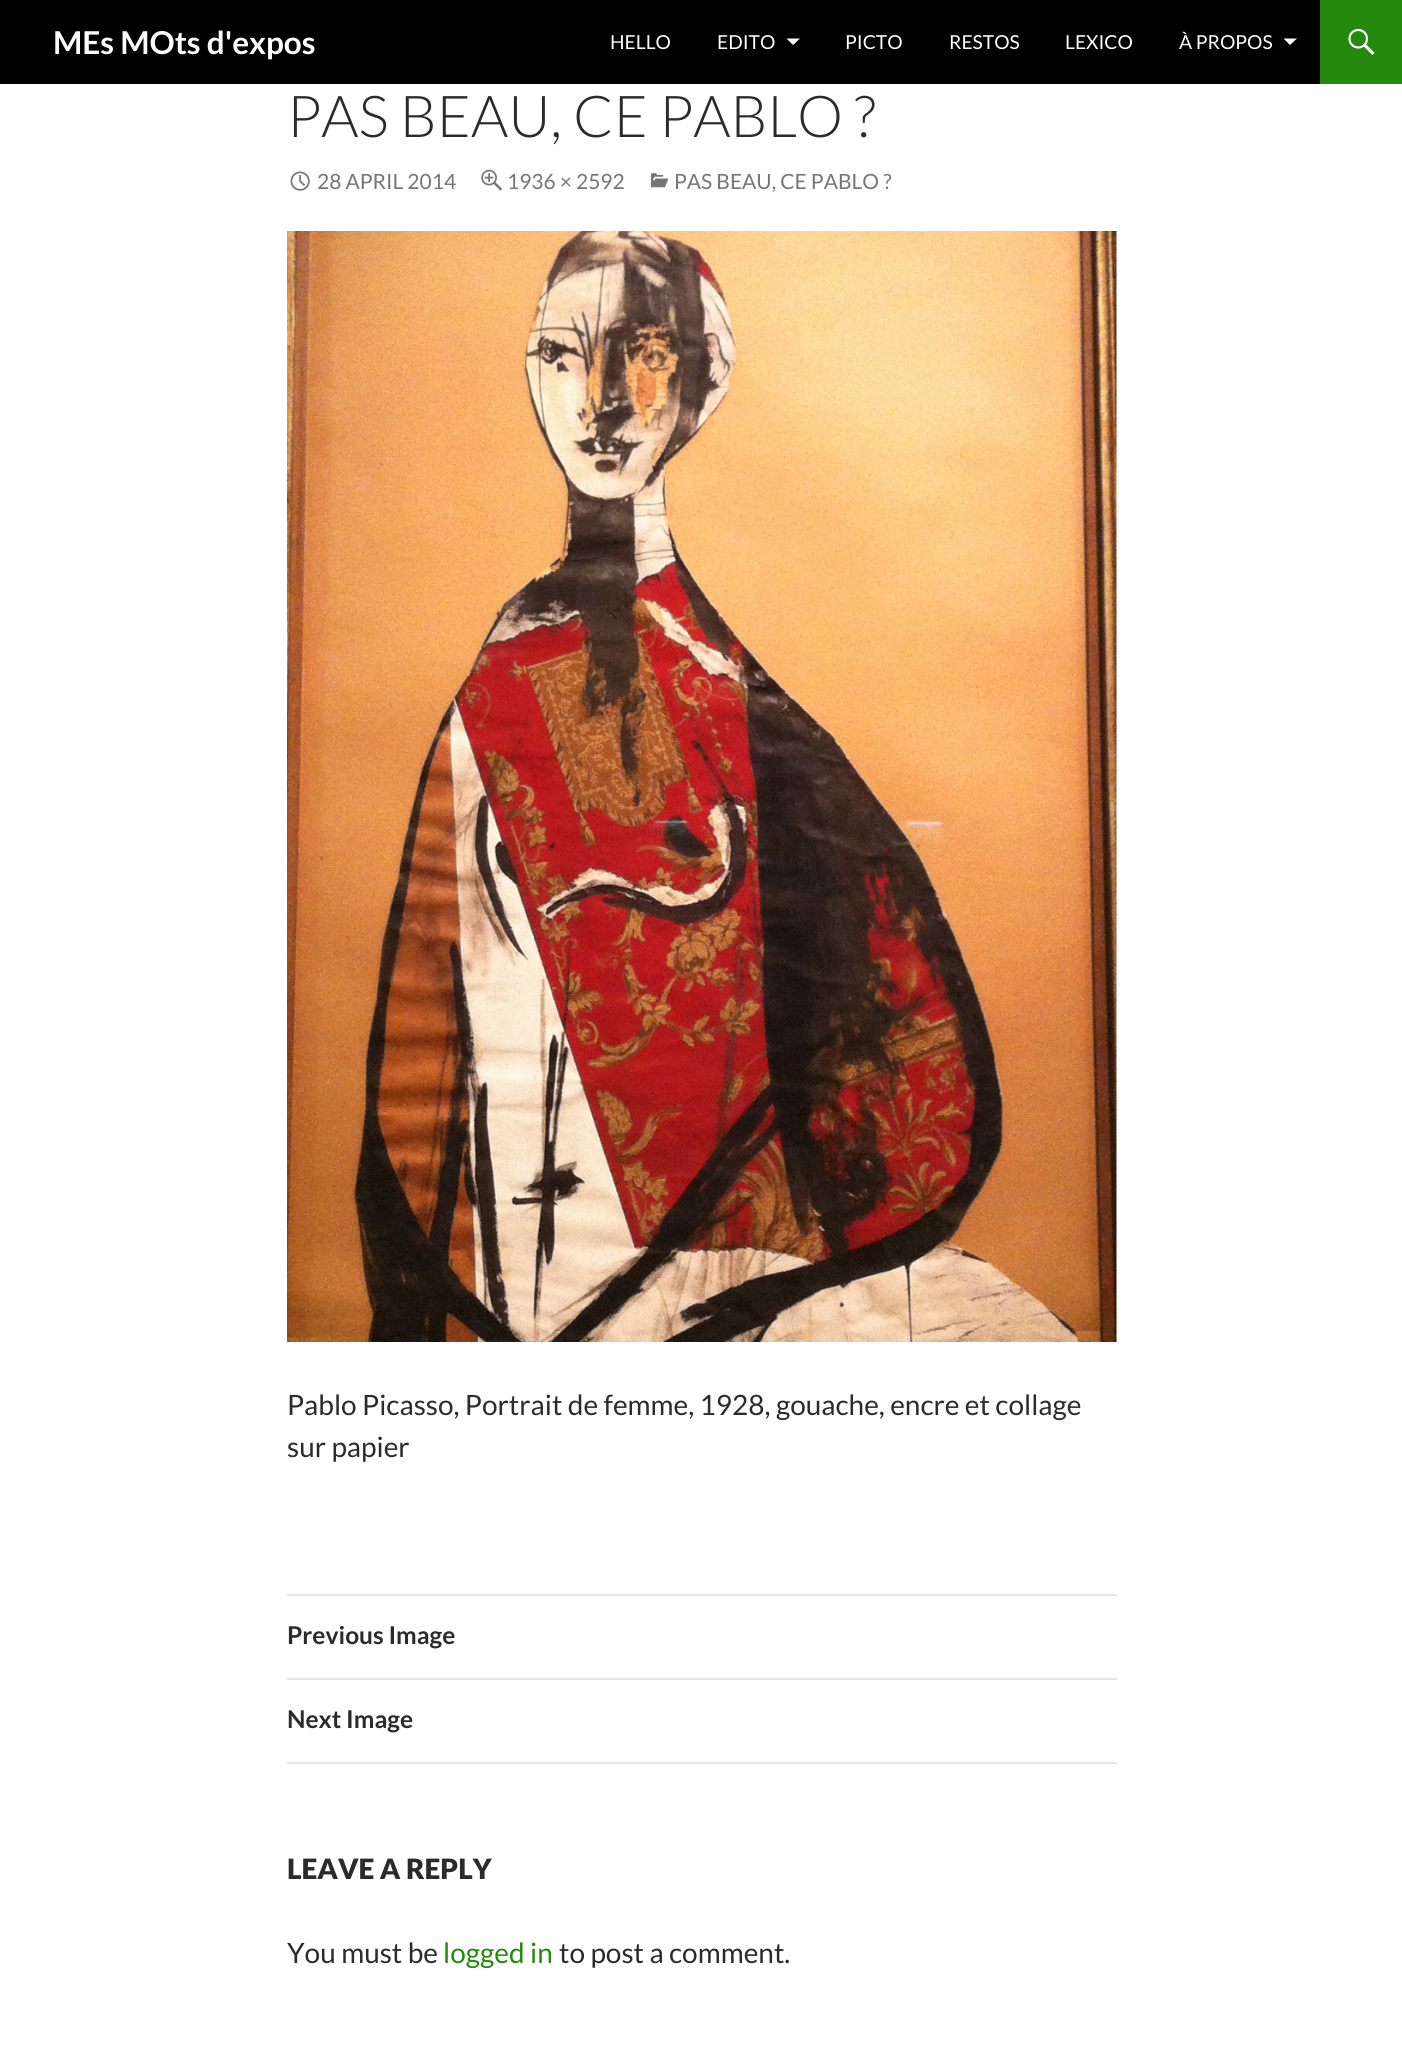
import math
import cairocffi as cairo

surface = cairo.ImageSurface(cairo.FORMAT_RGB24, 1402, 2047)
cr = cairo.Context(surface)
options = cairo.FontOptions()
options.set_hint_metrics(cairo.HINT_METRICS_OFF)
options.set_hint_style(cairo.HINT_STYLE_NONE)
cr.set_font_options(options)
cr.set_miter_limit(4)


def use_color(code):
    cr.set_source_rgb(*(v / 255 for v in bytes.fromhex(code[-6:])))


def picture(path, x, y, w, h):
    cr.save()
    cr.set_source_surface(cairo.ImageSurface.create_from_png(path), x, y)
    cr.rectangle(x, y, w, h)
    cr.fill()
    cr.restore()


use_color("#ffffff")
cr.paint()
use_color("#000000")
cr.rectangle(0, 0, 1320, 84)
cr.fill()
cr.select_font_face("Lato", cairo.FONT_SLANT_NORMAL, cairo.FONT_WEIGHT_BOLD)
cr.set_font_size(31.5)
use_color("#ffffff")
cr.move_to(53, 54)
cr.show_text("MEs MOts d'expos")
cr.select_font_face("Lato")
cr.set_font_size(19.25)
cr.move_to(610, 49)
cr.show_text("HELLO")
cr.move_to(717, 49)
cr.show_text("EDITO")
cr.new_path()
cr.move_to(786.5, 38.5)
cr.line_to(793, 45)
cr.line_to(800, 38.5)
cr.close_path()
cr.fill()
cr.move_to(845, 49)
cr.show_text("PICTO")
cr.move_to(949, 49)
cr.show_text("RESTOS")
cr.move_to(1065, 49)
cr.show_text("LEXICO")
cr.move_to(1179, 49)
cr.show_text("À PROPOS")
cr.new_path()
cr.move_to(1283.5, 38.5)
cr.line_to(1290, 45)
cr.line_to(1297, 38.5)
cr.close_path()
cr.fill()
use_color("#24890d")
cr.rectangle(1320, 0, 82, 84)
cr.fill()
picture("img1.png", 1348, 28, 27, 27)
cr.select_font_face("Lato Light")
cr.set_font_size(57.75)
use_color("#2b2b2b")
cr.move_to(287, 137)
cr.show_text("PAS BEAU, CE PABLO ?")
picture("img2.png", 290, 171, 20, 20)
cr.select_font_face("Lato")
cr.set_font_size(21)
use_color("#767676")
cr.move_to(317, 189)
cr.show_text("28 APRIL 2014")
picture("img3.png", 481, 169, 22, 22)
cr.move_to(507, 189)
cr.show_text("1936 × 2592")
picture("img4.png", 651, 173, 18, 15)
cr.move_to(674, 189)
cr.show_text("PAS BEAU, CE PABLO ?")
picture("img5.png", 287, 231, 830, 1111)
cr.set_font_size(28)
use_color("#2b2b2b")
cr.move_to(287, 1415)
cr.show_text("Pablo Picasso, Portrait de femme, 1928, gouache, encre et collage")
cr.move_to(287, 1457)
cr.show_text("sur papier")
use_color("#e6e6e6")
cr.rectangle(287, 1594, 830, 2)
cr.fill()
cr.rectangle(287, 1678, 830, 2)
cr.fill()
cr.select_font_face("Lato", cairo.FONT_SLANT_NORMAL, cairo.FONT_WEIGHT_BOLD)
cr.set_font_size(24.5)
use_color("#2b2b2b")
cr.move_to(287, 1644)
cr.show_text("Previous Image")
use_color("#e6e6e6")
cr.rectangle(287, 1762, 830, 2)
cr.fill()
use_color("#2b2b2b")
cr.move_to(287, 1728)
cr.show_text("Next Image")
cr.select_font_face("Lato Black")
cr.set_font_size(28)
cr.move_to(287, 1879)
cr.show_text("LEAVE A REPLY")
cr.select_font_face("Lato")
cr.move_to(287, 1963)
cr.show_text("You must be")
use_color("#24890d")
cr.move_to(443, 1963)
cr.show_text("logged in")
use_color("#2b2b2b")
cr.move_to(559, 1963)
cr.show_text("to post a comment.")
surface.write_to_png("result.png")
